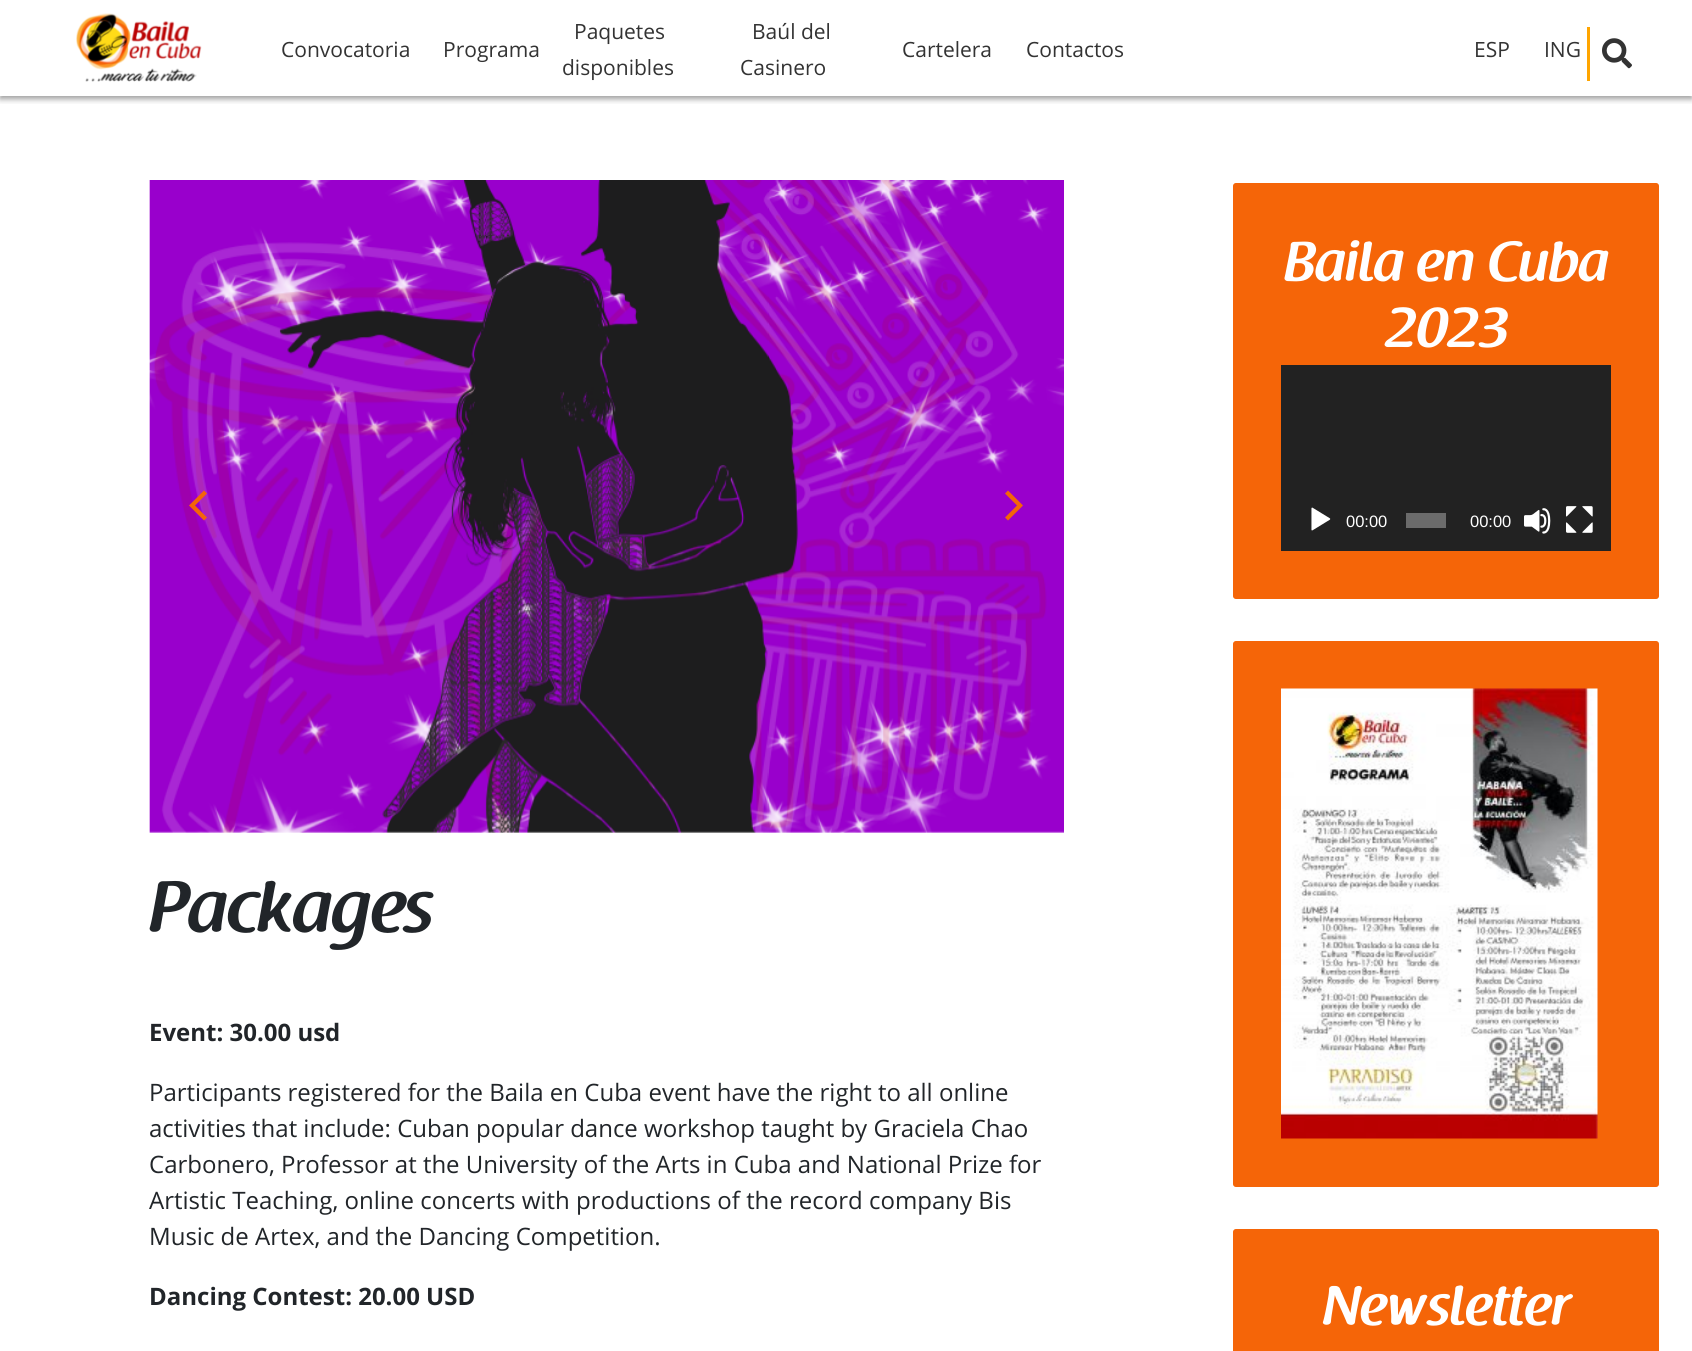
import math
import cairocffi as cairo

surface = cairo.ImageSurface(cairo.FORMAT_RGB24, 1692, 1351)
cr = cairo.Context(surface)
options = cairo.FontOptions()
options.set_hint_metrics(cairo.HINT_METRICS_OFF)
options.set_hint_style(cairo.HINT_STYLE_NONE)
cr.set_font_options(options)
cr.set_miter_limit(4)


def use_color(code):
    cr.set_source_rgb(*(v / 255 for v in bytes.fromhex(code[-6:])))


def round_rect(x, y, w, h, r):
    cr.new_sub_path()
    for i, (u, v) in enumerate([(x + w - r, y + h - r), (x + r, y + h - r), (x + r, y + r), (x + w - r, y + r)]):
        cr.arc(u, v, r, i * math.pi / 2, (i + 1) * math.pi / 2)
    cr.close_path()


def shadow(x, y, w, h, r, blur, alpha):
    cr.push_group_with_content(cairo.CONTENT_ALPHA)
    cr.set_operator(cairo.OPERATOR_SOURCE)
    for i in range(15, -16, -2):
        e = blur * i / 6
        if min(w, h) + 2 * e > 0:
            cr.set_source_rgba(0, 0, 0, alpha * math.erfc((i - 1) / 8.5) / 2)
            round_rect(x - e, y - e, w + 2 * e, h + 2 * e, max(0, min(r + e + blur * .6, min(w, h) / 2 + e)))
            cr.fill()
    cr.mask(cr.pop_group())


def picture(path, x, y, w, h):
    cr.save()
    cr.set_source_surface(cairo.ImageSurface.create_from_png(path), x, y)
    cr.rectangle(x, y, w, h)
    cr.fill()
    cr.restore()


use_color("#ffffff")
cr.paint()
cr.save()
cr.rectangle(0, 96, 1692, 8)
cr.clip()
use_color("#000000")
shadow(0, 3, 1692, 96, 0, 3, 0.39)
cr.restore()
picture("img1.png", 76, 13, 126, 69)
cr.select_font_face("Open Sans")
cr.set_font_size(21)
use_color("#333333")
cr.move_to(281, 57)
cr.show_text("Convocatoria")
cr.move_to(443, 57)
cr.show_text("Programa")
cr.move_to(574, 39)
cr.show_text("Paquetes")
cr.move_to(562, 75)
cr.show_text("disponibles")
cr.move_to(752, 39)
cr.show_text("Baúl del")
cr.move_to(740, 75)
cr.show_text("Casinero")
cr.move_to(902, 57)
cr.show_text("Cartelera")
cr.move_to(1026, 57)
cr.show_text("Contactos")
cr.move_to(1474, 57)
cr.show_text("ESP")
cr.move_to(1544, 57)
cr.show_text("ING")
use_color("#ffa500")
cr.rectangle(1587, 27, 3, 54)
cr.fill()
picture("img2.png", 1602, 38, 30, 31)
picture("img3.png", 149, 180, 915, 653)
use_color("#f46508")
cr.new_path()
cr.move_to(189, 505.5)
cr.line_to(204, 520.5)
cr.line_to(207, 517.5)
cr.line_to(195, 505.5)
cr.line_to(207, 493.5)
cr.line_to(204, 490.5)
cr.close_path()
cr.fill()
cr.new_path()
cr.move_to(1023, 505.5)
cr.line_to(1008, 490.5)
cr.line_to(1005, 493.5)
cr.line_to(1017, 505.5)
cr.line_to(1005, 517.5)
cr.line_to(1008, 520.5)
cr.close_path()
cr.fill()
cr.select_font_face("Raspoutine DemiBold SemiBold", cairo.FONT_SLANT_ITALIC)
cr.set_font_size(72)
use_color("#212529")
cr.move_to(149, 932)
cr.show_text("Packages")
cr.select_font_face("Open Sans", cairo.FONT_SLANT_NORMAL, cairo.FONT_WEIGHT_BOLD)
cr.set_font_size(24)
cr.move_to(149, 1041)
cr.show_text("Event: 30.00 usd")
cr.select_font_face("Open Sans")
cr.move_to(149, 1101)
cr.show_text("Participants registered for the Baila en Cuba event have the right to all online")
cr.move_to(149, 1137)
cr.show_text("activities that include: Cuban popular dance workshop taught by Graciela Chao")
cr.move_to(149, 1173)
cr.show_text("Carbonero, Professor at the University of the Arts in Cuba and National Prize for")
cr.move_to(149, 1209)
cr.show_text("Artistic Teaching, online concerts with productions of the record company Bis")
cr.move_to(149, 1245)
cr.show_text("Music de Artex, and the Dancing Competition.")
cr.select_font_face("Open Sans", cairo.FONT_SLANT_NORMAL, cairo.FONT_WEIGHT_BOLD)
cr.move_to(149, 1305)
cr.show_text("Dancing Contest: 20.00 USD")
use_color("#f56508")
round_rect(1231.5, 181.5, 429, 419, 4.5)
cr.fill_preserve()
use_color("#ffffff")
cr.set_line_width(3)
cr.stroke()
cr.select_font_face("Raspoutine DemiBold SemiBold", cairo.FONT_SLANT_ITALIC)
cr.set_font_size(55.5)
cr.move_to(1284, 281)
cr.show_text("Baila en Cuba")
cr.move_to(1384, 347)
cr.show_text("2023")
use_color("#222222")
cr.rectangle(1281, 365, 330, 186)
cr.fill()
picture("img4.png", 1311, 507, 20, 24)
cr.select_font_face("Liberation Sans")
cr.set_font_size(16.5)
use_color("#ffffff")
cr.move_to(1346, 527)
cr.show_text("00:00")
use_color("#6b6b6b")
cr.rectangle(1406, 513, 40, 15)
cr.fill()
use_color("#ffffff")
cr.move_to(1470, 527)
cr.show_text("00:00")
picture("img5.png", 1524, 508, 27, 26)
picture("img6.png", 1566, 506, 27, 27)
use_color("#f56508")
round_rect(1231.5, 639.5, 429, 549, 4.5)
cr.fill_preserve()
use_color("#ffffff")
cr.stroke()
picture("img7.png", 1281, 688, 317, 451)
use_color("#f56508")
round_rect(1231.5, 1227.5, 429, 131, 4.5)
cr.fill_preserve()
use_color("#ffffff")
cr.stroke()
cr.select_font_face("Raspoutine DemiBold SemiBold", cairo.FONT_SLANT_ITALIC)
cr.set_font_size(55.5)
cr.move_to(1323, 1325)
cr.show_text("Newsletter")
surface.write_to_png("result.png")
